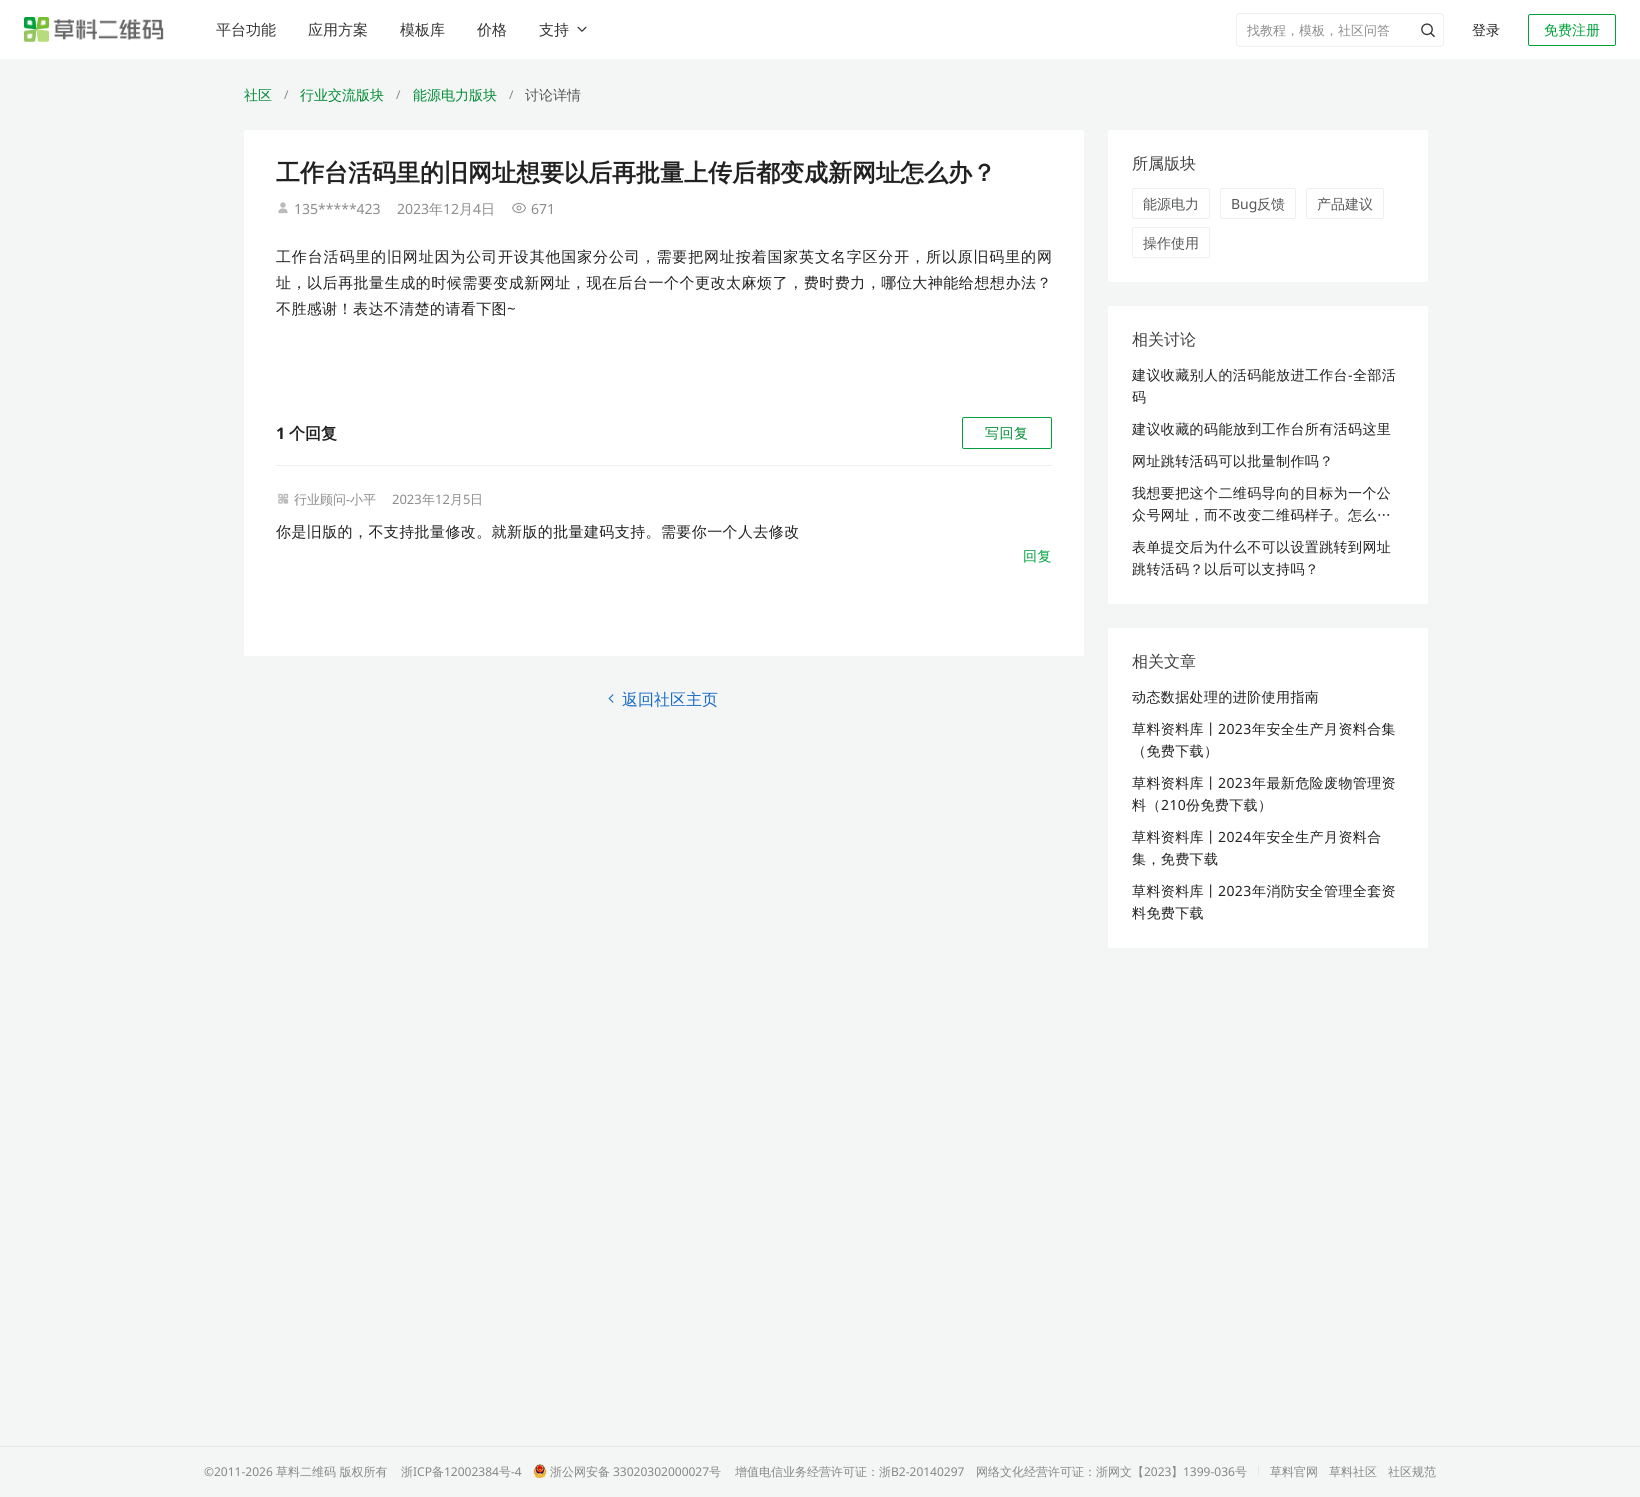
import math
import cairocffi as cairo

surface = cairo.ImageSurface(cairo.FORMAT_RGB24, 1640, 1497)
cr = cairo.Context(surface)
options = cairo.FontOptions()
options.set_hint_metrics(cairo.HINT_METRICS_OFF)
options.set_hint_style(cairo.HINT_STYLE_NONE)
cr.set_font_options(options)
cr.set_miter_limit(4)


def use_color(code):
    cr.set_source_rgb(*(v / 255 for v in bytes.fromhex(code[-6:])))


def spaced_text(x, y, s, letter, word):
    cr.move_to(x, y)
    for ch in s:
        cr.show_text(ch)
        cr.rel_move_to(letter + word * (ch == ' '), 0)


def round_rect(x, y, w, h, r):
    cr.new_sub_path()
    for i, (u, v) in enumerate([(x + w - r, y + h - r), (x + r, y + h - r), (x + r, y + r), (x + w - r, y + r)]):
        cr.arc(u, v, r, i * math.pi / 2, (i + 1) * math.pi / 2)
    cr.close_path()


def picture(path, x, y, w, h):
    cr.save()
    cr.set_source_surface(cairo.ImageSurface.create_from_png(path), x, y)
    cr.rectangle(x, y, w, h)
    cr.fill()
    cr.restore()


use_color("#f4f5f5")
cr.paint()
use_color("#ffffff")
cr.rectangle(0, 0, 1640, 59)
cr.fill()
picture("img1.png", 24, 17, 140, 25)
cr.select_font_face("WenQuanYi Zen Hei Medium")
cr.set_font_size(15)
use_color("#333333")
cr.move_to(216, 35)
cr.show_text("平台功能")
cr.move_to(308, 35)
cr.show_text("应用方案")
cr.move_to(400, 35)
cr.show_text("模板库")
cr.move_to(477, 35)
cr.show_text("价格")
cr.move_to(539, 35)
cr.show_text("支持")
picture("img2.png", 577, 26, 10, 6)
round_rect(1236.5, 13.5, 207, 33, 3.5)
use_color("#edeff0")
cr.set_line_width(1)
cr.stroke()
cr.set_font_size(13)
use_color("#8c8c8c")
cr.move_to(1247, 35)
cr.show_text("找教程，模板，社区问答")
picture("img3.png", 1421, 23, 14, 15)
cr.set_font_size(14)
use_color("#212121")
cr.move_to(1472, 35)
cr.show_text("登录")
round_rect(1528.5, 14.5, 87, 31, 1.5)
use_color("#00a13b")
cr.stroke()
cr.move_to(1544, 35)
cr.show_text("免费注册")
use_color("#008c33")
cr.move_to(244, 100)
cr.show_text("社区")
cr.select_font_face("Noto Sans")
cr.set_font_size(12)
use_color("#868787")
cr.move_to(284, 99)
cr.show_text("/")
cr.select_font_face("WenQuanYi Zen Hei Medium")
cr.set_font_size(14)
use_color("#008c33")
cr.move_to(300, 100)
cr.show_text("行业交流版块")
cr.select_font_face("Noto Sans")
cr.set_font_size(12)
use_color("#868787")
cr.move_to(396, 99)
cr.show_text("/")
cr.select_font_face("WenQuanYi Zen Hei Medium")
cr.set_font_size(14)
use_color("#008c33")
cr.move_to(413, 100)
cr.show_text("能源电力版块")
cr.select_font_face("Noto Sans")
cr.set_font_size(12)
use_color("#868787")
cr.move_to(509, 99)
cr.show_text("/")
cr.select_font_face("WenQuanYi Zen Hei Medium")
cr.set_font_size(14)
use_color("#555656")
cr.move_to(525, 100)
cr.show_text("讨论详情")
use_color("#ffffff")
cr.new_path()
cr.move_to(246, 130)
cr.line_to(1082, 130)
cr.curve_to(1083, 130, 1084, 131, 1084, 132)
cr.line_to(1084, 385)
cr.line_to(244, 385)
cr.line_to(244, 132)
cr.curve_to(244, 131, 245, 130, 246, 130)
cr.close_path()
cr.fill()
cr.select_font_face("WenQuanYi Zen Hei", cairo.FONT_SLANT_NORMAL, cairo.FONT_WEIGHT_BOLD)
cr.set_font_size(24)
use_color("#212121")
cr.move_to(276, 181)
cr.show_text("工作台活码里的旧网址想要以后再批量上传后都变成新网址怎么办？")
picture("img4.png", 278, 202, 10, 12)
cr.select_font_face("Noto Sans")
cr.set_font_size(14)
use_color("#8c8c8c")
cr.move_to(294, 214)
cr.show_text("135*****423")
cr.move_to(397, 214)
cr.show_text("2023")
cr.select_font_face("WenQuanYi Zen Hei Medium")
cr.move_to(429, 214)
cr.show_text("年")
cr.select_font_face("Noto Sans")
cr.move_to(443, 214)
cr.show_text("12")
cr.select_font_face("WenQuanYi Zen Hei Medium")
cr.move_to(459, 214)
cr.show_text("月")
cr.select_font_face("Noto Sans")
cr.move_to(473, 214)
cr.show_text("4")
cr.select_font_face("WenQuanYi Zen Hei Medium")
cr.move_to(481, 214)
cr.show_text("日")
picture("img5.png", 512, 203, 14, 10)
cr.select_font_face("Noto Sans")
cr.move_to(531, 214)
cr.show_text("671")
cr.select_font_face("WenQuanYi Zen Hei Medium")
cr.set_font_size(15)
use_color("#212121")
spaced_text(276, 262, "工作台活码里的旧网址因为公司开设其他国家分公司，需要把网址按着国家英文名字区分开，所以原旧码里的网", 0.85, 0)
spaced_text(276, 288, "址，以后再批量生成的时候需要变成新网址，现在后台一个个更改太麻烦了，费时费力，哪位大神能给想想办法？", 0.52, 0)
spaced_text(276, 314, "不胜感谢！表达不清楚的请看下图", 0.4, 0)
cr.select_font_face("Noto Sans")
spaced_text(507, 314, "~", 0.4, 0)
use_color("#ffffff")
cr.new_path()
cr.move_to(244, 385)
cr.line_to(1084, 385)
cr.line_to(1084, 654)
cr.curve_to(1084, 655, 1083, 656, 1082, 656)
cr.line_to(246, 656)
cr.curve_to(245, 656, 244, 655, 244, 654)
cr.close_path()
cr.fill()
cr.select_font_face("Noto Sans", cairo.FONT_SLANT_NORMAL, cairo.FONT_WEIGHT_BOLD)
cr.set_font_size(16)
use_color("#212121")
cr.move_to(276, 439)
cr.show_text("1")
cr.select_font_face("WenQuanYi Zen Hei", cairo.FONT_SLANT_NORMAL, cairo.FONT_WEIGHT_BOLD)
cr.move_to(289, 439)
cr.show_text("个回复")
round_rect(962.5, 417.5, 89, 31, 1.5)
use_color("#00a13b")
cr.stroke()
cr.select_font_face("WenQuanYi Zen Hei Medium")
cr.set_font_size(14)
use_color("#008c33")
spaced_text(985, 438, "写回复", 0.5, 0)
use_color("#edeff0")
cr.rectangle(276, 465, 776, 1)
cr.fill()
picture("img6.png", 278, 493, 11, 11)
cr.set_font_size(13)
use_color("#8c8c8c")
cr.move_to(294, 504)
cr.show_text("行业顾问 小平")
cr.select_font_face("Noto Sans")
cr.move_to(346, 504)
cr.show_text("-")
cr.move_to(392, 504)
cr.show_text("2023")
cr.select_font_face("WenQuanYi Zen Hei Medium")
cr.move_to(422, 504)
cr.show_text("年")
cr.select_font_face("Noto Sans")
cr.move_to(435, 504)
cr.show_text("12")
cr.select_font_face("WenQuanYi Zen Hei Medium")
cr.move_to(450, 504)
cr.show_text("月")
cr.select_font_face("Noto Sans")
cr.move_to(463, 504)
cr.show_text("5")
cr.select_font_face("WenQuanYi Zen Hei Medium")
cr.move_to(470, 504)
cr.show_text("日")
cr.set_font_size(15)
use_color("#212121")
spaced_text(276, 537, "你是旧版的，不支持批量修改。就新版的批量建码支持。需要你一个人去修改", 0.4, 0)
cr.set_font_size(14)
use_color("#00a13b")
spaced_text(1023, 561, "回复", 0.4, 0)
use_color("#166bc7")
cr.new_path()
cr.move_to(609.5, 698)
cr.line_to(613.5, 702)
cr.line_to(613, 703)
cr.line_to(608.5, 698.5)
cr.close_path()
cr.fill()
cr.new_path()
cr.move_to(613, 694)
cr.line_to(613.5, 695)
cr.line_to(609.5, 699)
cr.line_to(608.5, 698.5)
cr.close_path()
cr.fill()
cr.set_font_size(16)
cr.move_to(622, 705)
cr.show_text("返回社区主页")
use_color("#ffffff")
round_rect(1108, 130, 320, 152, 2)
cr.fill()
use_color("#404040")
cr.move_to(1132, 169)
cr.show_text("所属版块")
round_rect(1132.5, 188.5, 77, 30, 1.5)
use_color("#edeff0")
cr.stroke()
cr.set_font_size(14)
use_color("#555656")
cr.move_to(1143, 209)
cr.show_text("能源电力")
round_rect(1220.5, 188.5, 75, 30, 1.5)
use_color("#edeff0")
cr.stroke()
cr.select_font_face("Noto Sans")
use_color("#555656")
cr.move_to(1231, 209)
cr.show_text("Bug")
cr.select_font_face("WenQuanYi Zen Hei Medium")
cr.move_to(1257, 209)
cr.show_text("反馈")
round_rect(1306.5, 188.5, 77, 30, 1.5)
use_color("#edeff0")
cr.stroke()
use_color("#555656")
cr.move_to(1317, 209)
cr.show_text("产品建议")
round_rect(1132.5, 227.5, 77, 30, 1.5)
use_color("#edeff0")
cr.stroke()
use_color("#555656")
cr.move_to(1143, 248)
cr.show_text("操作使用")
use_color("#ffffff")
round_rect(1108, 306, 320, 298, 2)
cr.fill()
cr.set_font_size(16)
use_color("#404040")
cr.move_to(1132, 345)
cr.show_text("相关讨论")
cr.set_font_size(14)
use_color("#212121")
spaced_text(1132, 380, "建议收藏别人的活码能放进工作台", 0.4, 0)
cr.select_font_face("Noto Sans")
spaced_text(1348, 380, "-", 0.4, 0)
cr.select_font_face("WenQuanYi Zen Hei Medium")
spaced_text(1353, 380, "全部活", 0.4, 0)
spaced_text(1132, 402, "码", 0.4, 0)
spaced_text(1132, 434, "建议收藏的码能放到工作台所有活码这里", 0.4, 0)
spaced_text(1132, 466, "网址跳转活码可以批量制作吗？", 0.4, 0)
spaced_text(1132, 498, "我想要把这个二维码导向的目标为一个公", 0.4, 0)
spaced_text(1132, 520, "众号网址，而不改变二维码样子。怎么…", 0.4, 0)
spaced_text(1132, 552, "表单提交后为什么不可以设置跳转到网址", 0.4, 0)
spaced_text(1132, 574, "跳转活码？以后可以支持吗？", 0.4, 0)
use_color("#ffffff")
round_rect(1108, 628, 320, 320, 2)
cr.fill()
cr.set_font_size(16)
use_color("#404040")
cr.move_to(1132, 667)
cr.show_text("相关文章")
cr.set_font_size(14)
use_color("#212121")
spaced_text(1132, 702, "动态数据处理的进阶使用指南", 0.4, 0)
spaced_text(1132, 734, "草料资料库丨", 0.4, 0)
cr.select_font_face("Noto Sans")
spaced_text(1218, 734, "2023", 0.4, 0)
cr.select_font_face("WenQuanYi Zen Hei Medium")
spaced_text(1252, 734, "年安全生产月资料合集", 0.4, 0)
spaced_text(1132, 756, "（免费下载）", 0.4, 0)
spaced_text(1132, 788, "草料资料库丨", 0.4, 0)
cr.select_font_face("Noto Sans")
spaced_text(1218, 788, "2023", 0.4, 0)
cr.select_font_face("WenQuanYi Zen Hei Medium")
spaced_text(1252, 788, "年最新危险废物管理资", 0.4, 0)
spaced_text(1132, 810, "料（", 0.4, 0)
cr.select_font_face("Noto Sans")
spaced_text(1161, 810, "210", 0.4, 0)
cr.select_font_face("WenQuanYi Zen Hei Medium")
spaced_text(1186, 810, "份免费下载）", 0.4, 0)
spaced_text(1132, 842, "草料资料库丨", 0.4, 0)
cr.select_font_face("Noto Sans")
spaced_text(1218, 842, "2024", 0.4, 0)
cr.select_font_face("WenQuanYi Zen Hei Medium")
spaced_text(1252, 842, "年安全生产月资料合", 0.4, 0)
spaced_text(1132, 864, "集，免费下载", 0.4, 0)
spaced_text(1132, 896, "草料资料库丨", 0.4, 0)
cr.select_font_face("Noto Sans")
spaced_text(1218, 896, "2023", 0.4, 0)
cr.select_font_face("WenQuanYi Zen Hei Medium")
spaced_text(1252, 896, "年消防安全管理全套资", 0.4, 0)
spaced_text(1132, 918, "料免费下载", 0.4, 0)
use_color("#e4e6e7")
cr.rectangle(0, 1446, 1640, 1)
cr.fill()
cr.select_font_face("Noto Sans")
cr.set_font_size(12)
use_color("#868787")
cr.move_to(204, 1476)
cr.show_text("©2011-2026")
cr.select_font_face("WenQuanYi Zen Hei Medium")
cr.move_to(276, 1476)
cr.show_text("草料二维码 版权所有")
cr.move_to(401, 1476)
cr.show_text("浙")
cr.select_font_face("Noto Sans")
cr.move_to(413, 1476)
cr.show_text("ICP")
cr.select_font_face("WenQuanYi Zen Hei Medium")
cr.move_to(432, 1476)
cr.show_text("备")
cr.select_font_face("Noto Sans")
cr.move_to(444, 1476)
cr.show_text("12002384")
cr.select_font_face("WenQuanYi Zen Hei Medium")
cr.move_to(499, 1476)
cr.show_text("号")
cr.select_font_face("Noto Sans")
cr.move_to(511, 1476)
cr.show_text("-4")
picture("img7.png", 533, 1464, 14, 14)
cr.select_font_face("WenQuanYi Zen Hei Medium")
cr.move_to(550, 1476)
cr.show_text("浙公网安备")
cr.select_font_face("Noto Sans")
cr.move_to(613, 1476)
cr.show_text("33020302000027")
cr.select_font_face("WenQuanYi Zen Hei Medium")
cr.move_to(709, 1476)
cr.show_text("号")
cr.move_to(735, 1476)
cr.show_text("增值电信业务经营许可证：浙")
cr.select_font_face("Noto Sans")
cr.move_to(891, 1476)
cr.show_text("B2-20140297")
cr.select_font_face("WenQuanYi Zen Hei Medium")
cr.move_to(976, 1476)
cr.show_text("网络文化经营许可证：浙网文【")
cr.select_font_face("Noto Sans")
cr.move_to(1144, 1476)
cr.show_text("2023")
cr.select_font_face("WenQuanYi Zen Hei Medium")
cr.move_to(1171, 1476)
cr.show_text("】")
cr.select_font_face("Noto Sans")
cr.move_to(1183, 1476)
cr.show_text("1399-036")
cr.select_font_face("WenQuanYi Zen Hei Medium")
cr.move_to(1235, 1476)
cr.show_text("号")
use_color("#e4e6e7")
cr.rectangle(1258, 1466, 1, 10)
cr.fill()
use_color("#868787")
cr.move_to(1270, 1476)
cr.show_text("草料官网")
cr.move_to(1329, 1476)
cr.show_text("草料社区")
cr.move_to(1388, 1476)
cr.show_text("社区规范")
surface.write_to_png("result.png")
